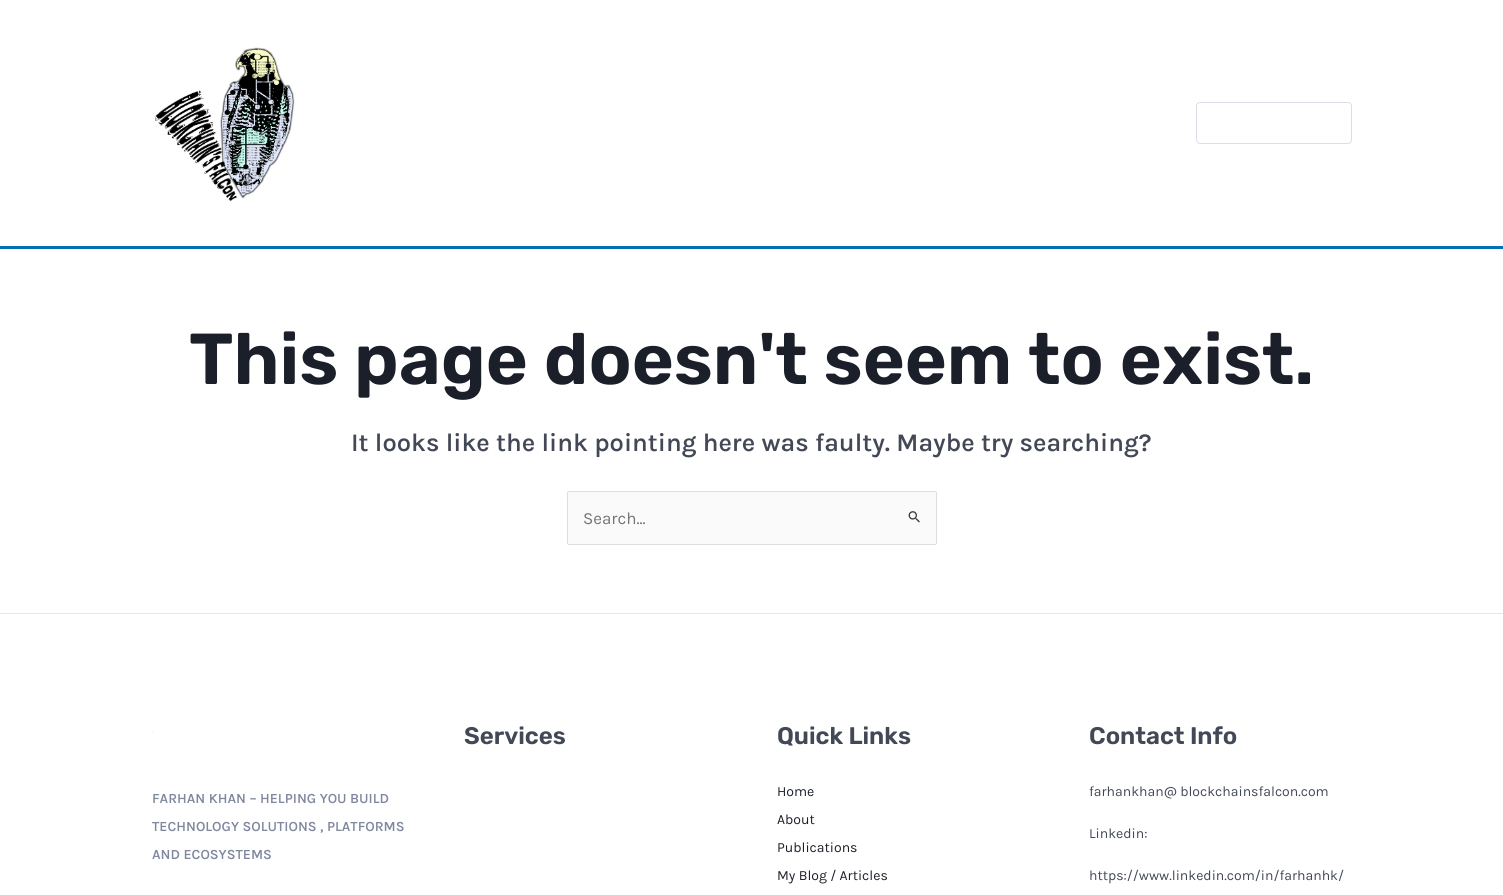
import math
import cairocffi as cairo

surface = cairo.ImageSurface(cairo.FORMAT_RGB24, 1503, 895)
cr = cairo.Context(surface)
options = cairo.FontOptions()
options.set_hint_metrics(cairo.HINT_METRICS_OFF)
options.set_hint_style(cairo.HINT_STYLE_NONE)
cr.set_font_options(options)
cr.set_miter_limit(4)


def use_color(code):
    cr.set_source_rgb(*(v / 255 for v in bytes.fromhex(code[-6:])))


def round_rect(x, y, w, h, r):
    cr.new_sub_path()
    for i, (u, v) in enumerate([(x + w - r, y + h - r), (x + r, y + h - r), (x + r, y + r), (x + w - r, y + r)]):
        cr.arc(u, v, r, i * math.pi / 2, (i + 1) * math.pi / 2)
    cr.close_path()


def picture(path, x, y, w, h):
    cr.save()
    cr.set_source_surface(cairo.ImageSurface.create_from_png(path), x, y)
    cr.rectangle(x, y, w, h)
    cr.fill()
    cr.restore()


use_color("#ffffff")
cr.paint()
use_color("#0170b9")
cr.rectangle(0, 246, 1503, 3)
cr.fill()
picture("img1.png", 154, 47, 141, 155)
round_rect(1196.5, 102.5, 155, 41, 3.5)
use_color("#d9dee8")
cr.set_line_width(1)
cr.stroke()
cr.select_font_face("Rubik SemiBold")
cr.set_font_size(72)
use_color("#1b1f29")
cr.move_to(189, 384)
cr.show_text("This page doesn't seem to exist.")
cr.select_font_face("Karla SemiBold")
cr.set_font_size(25.5)
use_color("#434856")
cr.move_to(351, 451)
cr.show_text("It looks like the link pointing here was faulty. Maybe try searching?")
use_color("#fafafa")
round_rect(567.5, 491.5, 369, 53, 1.5)
cr.fill_preserve()
use_color("#dddddd")
cr.stroke()
cr.select_font_face("Karla")
cr.set_font_size(17)
use_color("#757575")
cr.move_to(583, 524)
cr.show_text("Search...")
picture("img2.png", 908, 511, 12, 12)
use_color("#e6e6e6")
cr.rectangle(0, 613, 1503, 1)
cr.fill()
use_color("#ededee")
cr.rectangle(152, 732, 1, 1)
cr.fill()
cr.select_font_face("Karla SemiBold")
cr.set_font_size(14)
use_color("#80889e")
cr.move_to(152, 803)
cr.show_text("FARHAN KHAN – HELPING YOU BUILD")
cr.move_to(152, 831)
cr.show_text("TECHNOLOGY SOLUTIONS , PLATFORMS")
cr.move_to(152, 859)
cr.show_text("AND ECOSYSTEMS")
cr.select_font_face("Rubik SemiBold")
cr.set_font_size(24)
use_color("#434856")
cr.move_to(464, 744)
cr.show_text("Services")
cr.move_to(777, 744)
cr.show_text("Quick Links")
cr.select_font_face("Karla")
cr.set_font_size(14)
use_color("#1b1f29")
cr.move_to(777, 796)
cr.show_text("Home")
cr.move_to(777, 824)
cr.show_text("About")
cr.move_to(777, 852)
cr.show_text("Publications")
cr.move_to(777, 880)
cr.show_text("My Blog / Articles")
cr.select_font_face("Rubik SemiBold")
cr.set_font_size(24)
use_color("#434856")
cr.move_to(1089, 744)
cr.show_text("Contact Info")
cr.select_font_face("Karla")
cr.set_font_size(14)
cr.move_to(1089, 796)
cr.show_text("farhankhan@ blockchainsfalcon.com")
cr.move_to(1089, 838)
cr.show_text("Linkedin:")
cr.move_to(1089, 880)
cr.show_text("https://www.linkedin.com/in/farhanhk/")
surface.write_to_png("result.png")
